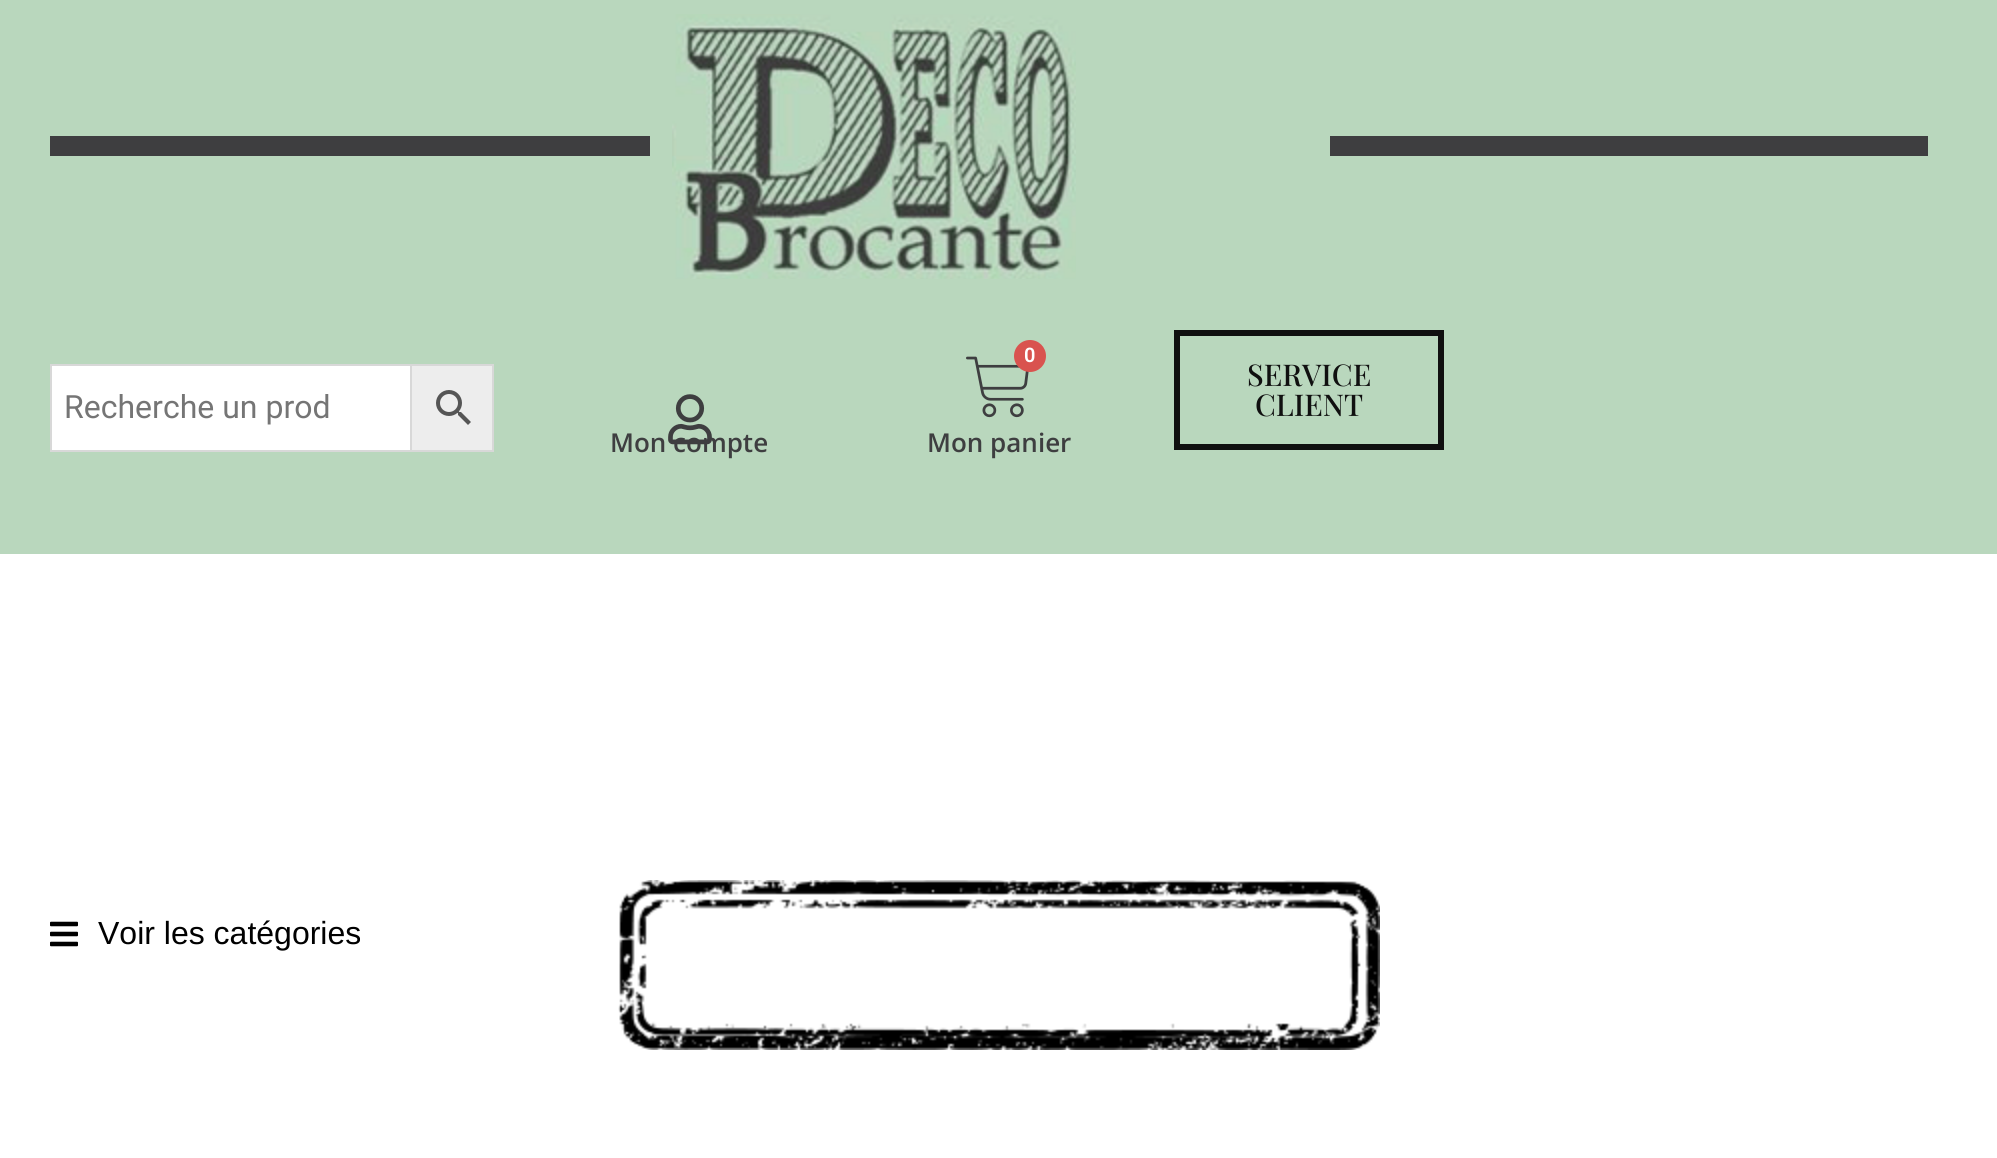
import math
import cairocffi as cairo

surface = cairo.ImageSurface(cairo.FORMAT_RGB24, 1997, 1158)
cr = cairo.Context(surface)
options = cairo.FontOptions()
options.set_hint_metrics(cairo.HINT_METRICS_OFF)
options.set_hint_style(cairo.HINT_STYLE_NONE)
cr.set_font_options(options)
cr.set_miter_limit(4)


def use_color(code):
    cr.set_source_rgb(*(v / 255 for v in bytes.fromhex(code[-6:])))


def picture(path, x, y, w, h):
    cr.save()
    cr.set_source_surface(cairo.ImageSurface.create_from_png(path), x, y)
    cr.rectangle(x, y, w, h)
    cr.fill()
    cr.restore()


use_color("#ffffff")
cr.paint()
use_color("#b9d7bd")
cr.rectangle(0, 0, 1997, 554)
cr.fill()
use_color("#3e3e40")
cr.rectangle(50, 136, 600, 20)
cr.fill()
picture("img1.png", 672, 14, 404, 265)
cr.rectangle(1330, 136, 598, 20)
cr.fill()
use_color("#ededed")
cr.rectangle(411, 365, 82, 86)
cr.fill_preserve()
use_color("#d8d8d8")
cr.stroke()
use_color("#ffffff")
cr.rectangle(51, 365, 360, 86)
cr.fill_preserve()
use_color("#d8d8d8")
cr.stroke()
cr.select_font_face("Roboto")
cr.set_font_size(32)
use_color("#757575")
cr.move_to(64, 418)
cr.show_text("Recherche un prod")
picture("img2.png", 436, 390, 35, 35)
picture("img3.png", 966, 356, 63, 62)
use_color("#d9534f")
cr.arc(1030, 356, 16, 0, 2 * math.pi)
cr.fill()
cr.select_font_face("Roboto SemiBold")
cr.set_font_size(20)
use_color("#ffffff")
cr.move_to(1024, 362)
cr.show_text("0")
cr.select_font_face("Open Sans SemiBold")
cr.set_font_size(26)
use_color("#3e3e40")
cr.move_to(927, 452)
cr.show_text("Mon panier")
cr.rectangle(1177, 333, 264, 114)
use_color("#101010")
cr.set_line_width(6)
cr.stroke()
cr.select_font_face("Playfair Display Medium")
cr.set_font_size(30)
cr.move_to(1247, 386)
cr.show_text("SERVICE")
cr.move_to(1255, 416)
cr.show_text("CLIENT")
picture("img4.png", 668, 394, 44, 51)
cr.select_font_face("Open Sans SemiBold")
cr.set_font_size(26)
use_color("#3e3e40")
cr.move_to(610, 452)
cr.show_text("Mon compte")
picture("img5.png", 50, 921, 28, 26)
cr.select_font_face("Liberation Sans")
cr.set_font_size(32)
use_color("#000000")
cr.move_to(98, 944)
cr.show_text("Voir les catégories")
picture("img6.png", 618, 880, 762, 170)
surface.write_to_png("result.png")
